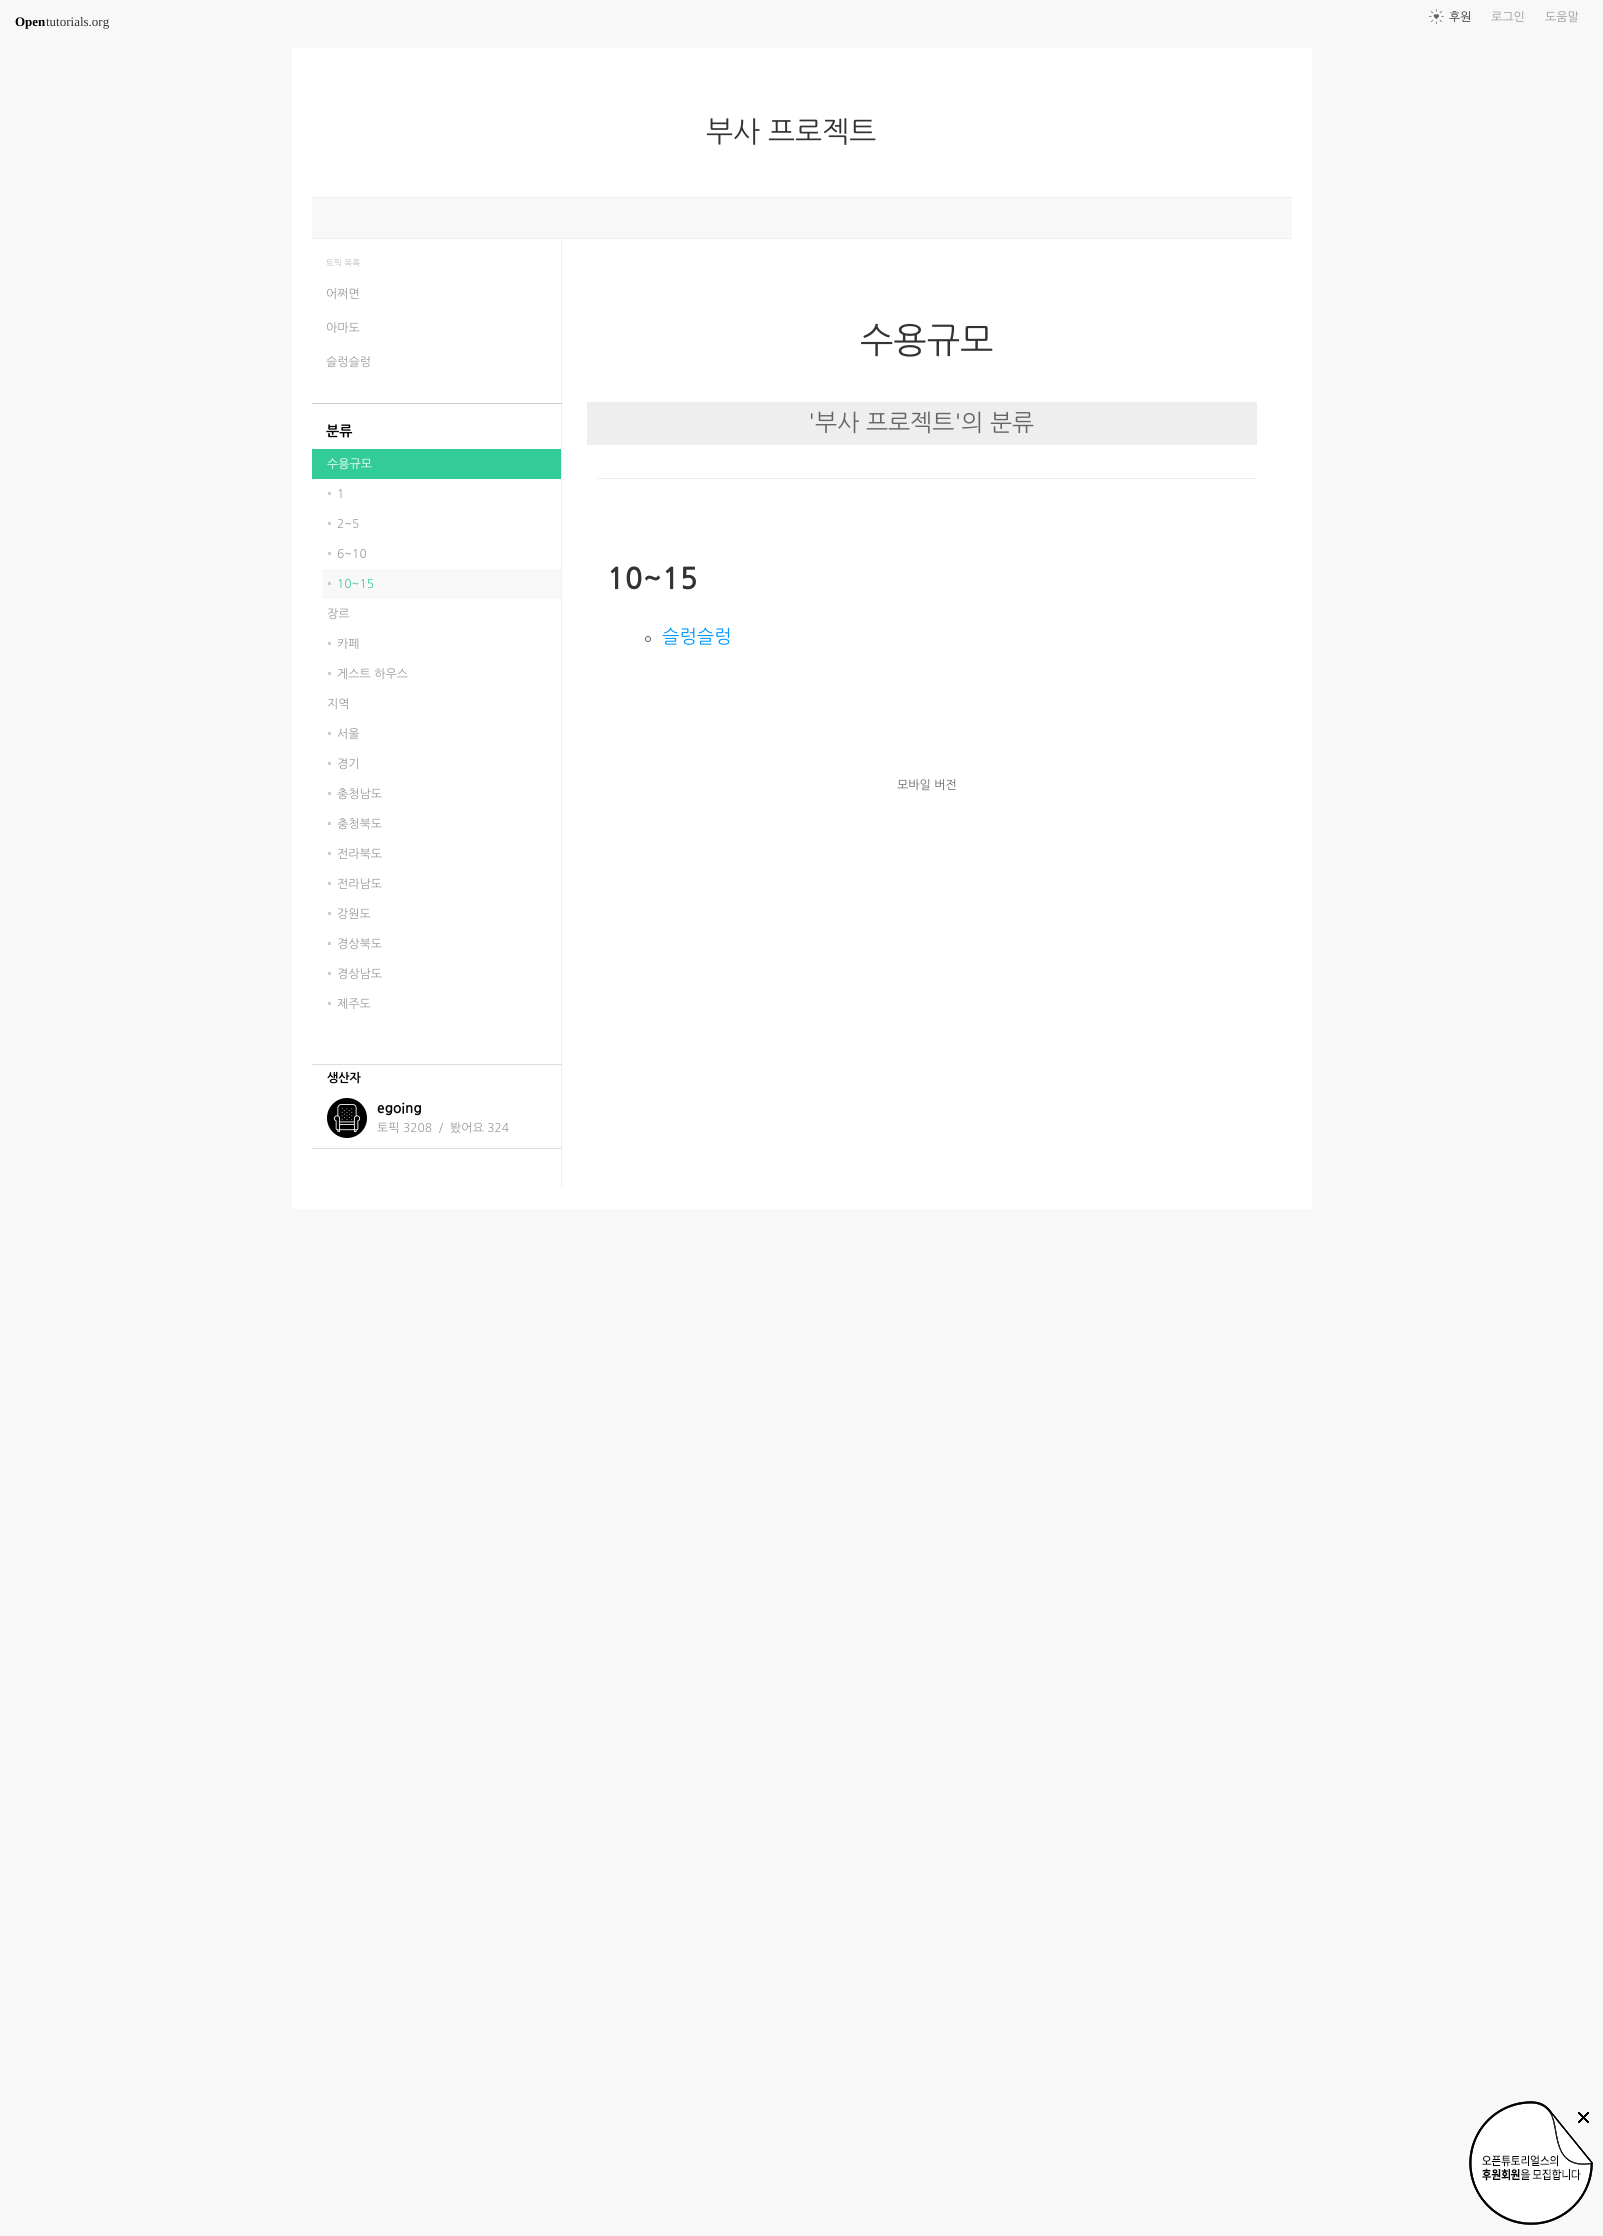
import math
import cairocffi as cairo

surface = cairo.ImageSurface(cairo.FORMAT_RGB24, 1603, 2236)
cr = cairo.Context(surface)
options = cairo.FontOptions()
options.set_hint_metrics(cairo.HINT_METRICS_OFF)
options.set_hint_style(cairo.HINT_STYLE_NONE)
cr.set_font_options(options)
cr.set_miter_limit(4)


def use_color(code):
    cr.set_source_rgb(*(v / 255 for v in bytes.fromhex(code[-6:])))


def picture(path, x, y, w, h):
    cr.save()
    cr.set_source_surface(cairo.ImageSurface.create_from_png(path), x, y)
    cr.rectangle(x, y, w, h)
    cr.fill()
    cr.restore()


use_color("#f8f8f8")
cr.paint()
cr.select_font_face("Liberation Serif", cairo.FONT_SLANT_NORMAL, cairo.FONT_WEIGHT_BOLD)
cr.set_font_size(13)
use_color("#000000")
cr.move_to(15, 26)
cr.show_text("Open")
cr.select_font_face("Liberation Serif")
use_color("#333333")
cr.move_to(46, 26)
cr.show_text("tutorials.org")
picture("img1.png", 1428, 9, 16, 15)
cr.select_font_face("NanumGothic")
cr.set_font_size(12)
cr.move_to(1449, 21)
cr.show_text("후원")
use_color("#999999")
cr.move_to(1491, 21)
cr.show_text("로그인")
cr.move_to(1545, 21)
cr.show_text("도움말")
use_color("#ffffff")
cr.rectangle(292, 48, 1020, 1161)
cr.fill()
cr.set_font_size(28.75)
use_color("#333333")
cr.move_to(706, 142)
cr.show_text("부사 프로젝트")
use_color("#f8f8f8")
cr.rectangle(312, 198, 980, 40)
cr.fill()
use_color("#eeeeee")
cr.rectangle(312, 197, 980, 1)
cr.fill()
cr.rectangle(312, 238, 980, 1)
cr.fill()
use_color("#f2f2f2")
cr.rectangle(561, 239, 1, 950)
cr.fill()
cr.set_font_size(8.5)
use_color("#bbbbbb")
cr.move_to(326, 266)
cr.show_text("토픽 목록")
cr.set_font_size(12)
use_color("#999999")
cr.move_to(326, 298)
cr.show_text("어쩌면")
cr.move_to(326, 332)
cr.show_text("아마도")
cr.move_to(326, 366)
cr.show_text("슬렁슬렁")
use_color("#cccccc")
cr.rectangle(312, 403, 250, 1)
cr.fill()
cr.select_font_face("NanumGothic", cairo.FONT_SLANT_NORMAL, cairo.FONT_WEIGHT_BOLD)
cr.set_font_size(14)
use_color("#000000")
cr.move_to(326, 436)
cr.show_text("분류")
use_color("#33cc99")
cr.rectangle(312, 449, 249, 30)
cr.fill()
cr.select_font_face("NanumGothic")
cr.set_font_size(12)
use_color("#ffffff")
cr.move_to(327, 468)
cr.show_text("수용규모")
use_color("#cccccc")
cr.rectangle(328, 492, 3, 3)
cr.fill()
use_color("#999999")
cr.move_to(337, 498)
cr.show_text("1")
use_color("#cccccc")
cr.rectangle(328, 522, 3, 3)
cr.fill()
use_color("#999999")
cr.move_to(337, 528)
cr.show_text("2~5")
use_color("#cccccc")
cr.rectangle(328, 552, 3, 3)
cr.fill()
use_color("#999999")
cr.move_to(337, 558)
cr.show_text("6~10")
use_color("#f8f8f8")
cr.rectangle(322, 569, 239, 30)
cr.fill()
use_color("#cccccc")
cr.rectangle(328, 582, 3, 3)
cr.fill()
use_color("#33cc99")
cr.move_to(337, 588)
cr.show_text("10~15")
use_color("#999999")
cr.move_to(327, 618)
cr.show_text("장르")
use_color("#cccccc")
cr.rectangle(328, 642, 3, 3)
cr.fill()
use_color("#999999")
cr.move_to(337, 648)
cr.show_text("카페")
use_color("#cccccc")
cr.rectangle(328, 672, 3, 3)
cr.fill()
use_color("#999999")
cr.move_to(337, 678)
cr.show_text("게스트 하우스")
cr.move_to(327, 708)
cr.show_text("지역")
use_color("#cccccc")
cr.rectangle(328, 732, 3, 3)
cr.fill()
use_color("#999999")
cr.move_to(337, 738)
cr.show_text("서울")
use_color("#cccccc")
cr.rectangle(328, 762, 3, 3)
cr.fill()
use_color("#999999")
cr.move_to(337, 768)
cr.show_text("경기")
use_color("#cccccc")
cr.rectangle(328, 792, 3, 3)
cr.fill()
use_color("#999999")
cr.move_to(337, 798)
cr.show_text("충청남도")
use_color("#cccccc")
cr.rectangle(328, 822, 3, 3)
cr.fill()
use_color("#999999")
cr.move_to(337, 828)
cr.show_text("충청북도")
use_color("#cccccc")
cr.rectangle(328, 852, 3, 3)
cr.fill()
use_color("#999999")
cr.move_to(337, 858)
cr.show_text("전라북도")
use_color("#cccccc")
cr.rectangle(328, 882, 3, 3)
cr.fill()
use_color("#999999")
cr.move_to(337, 888)
cr.show_text("전라남도")
use_color("#cccccc")
cr.rectangle(328, 912, 3, 3)
cr.fill()
use_color("#999999")
cr.move_to(337, 918)
cr.show_text("강원도")
use_color("#cccccc")
cr.rectangle(328, 942, 3, 3)
cr.fill()
use_color("#999999")
cr.move_to(337, 948)
cr.show_text("경상북도")
use_color("#cccccc")
cr.rectangle(328, 972, 3, 3)
cr.fill()
use_color("#999999")
cr.move_to(337, 978)
cr.show_text("경상남도")
use_color("#cccccc")
cr.rectangle(328, 1002, 3, 3)
cr.fill()
use_color("#999999")
cr.move_to(337, 1008)
cr.show_text("제주도")
use_color("#dddddd")
cr.rectangle(312, 1064, 250, 1)
cr.fill()
cr.rectangle(312, 1148, 250, 1)
cr.fill()
cr.select_font_face("NanumGothic", cairo.FONT_SLANT_NORMAL, cairo.FONT_WEIGHT_BOLD)
use_color("#000000")
cr.move_to(327, 1082)
cr.show_text("생산자")
picture("img2.png", 327, 1098, 40, 40)
cr.set_font_size(14)
cr.move_to(377, 1113)
cr.show_text("egoing")
cr.select_font_face("NanumGothic")
cr.set_font_size(12)
use_color("#999999")
cr.move_to(377, 1132)
cr.show_text("토픽 3208  /  봤어요 324")
use_color("#eeeeee")
cr.rectangle(597, 478, 660, 1)
cr.fill()
cr.set_font_size(35.5)
use_color("#333333")
cr.move_to(860, 353)
cr.show_text("수용규모")
use_color("#eeeeee")
cr.rectangle(587, 402, 670, 43)
cr.fill()
cr.set_font_size(23.5)
use_color("#666666")
cr.move_to(808, 431)
cr.show_text("'부사 프로젝트'의 분류")
cr.select_font_face("NanumGothic", cairo.FONT_SLANT_NORMAL, cairo.FONT_WEIGHT_BOLD)
cr.set_font_size(29.5)
use_color("#333333")
cr.move_to(607, 589)
cr.show_text("10~15")
cr.new_path()
cr.arc(648, 639, 2.5, 0, 2 * math.pi)
use_color("#666666")
cr.set_line_width(1)
cr.stroke()
cr.select_font_face("NanumGothic")
cr.set_font_size(18.5)
use_color("#0099ff")
cr.move_to(662, 643)
cr.show_text("슬렁슬렁")
cr.set_font_size(12)
use_color("#666666")
cr.move_to(897, 789)
cr.show_text("모바일 버전")
picture("img3.png", 1469, 2101, 124, 124)
picture("img4.png", 1578, 2112, 11, 11)
surface.write_to_png("result.png")
